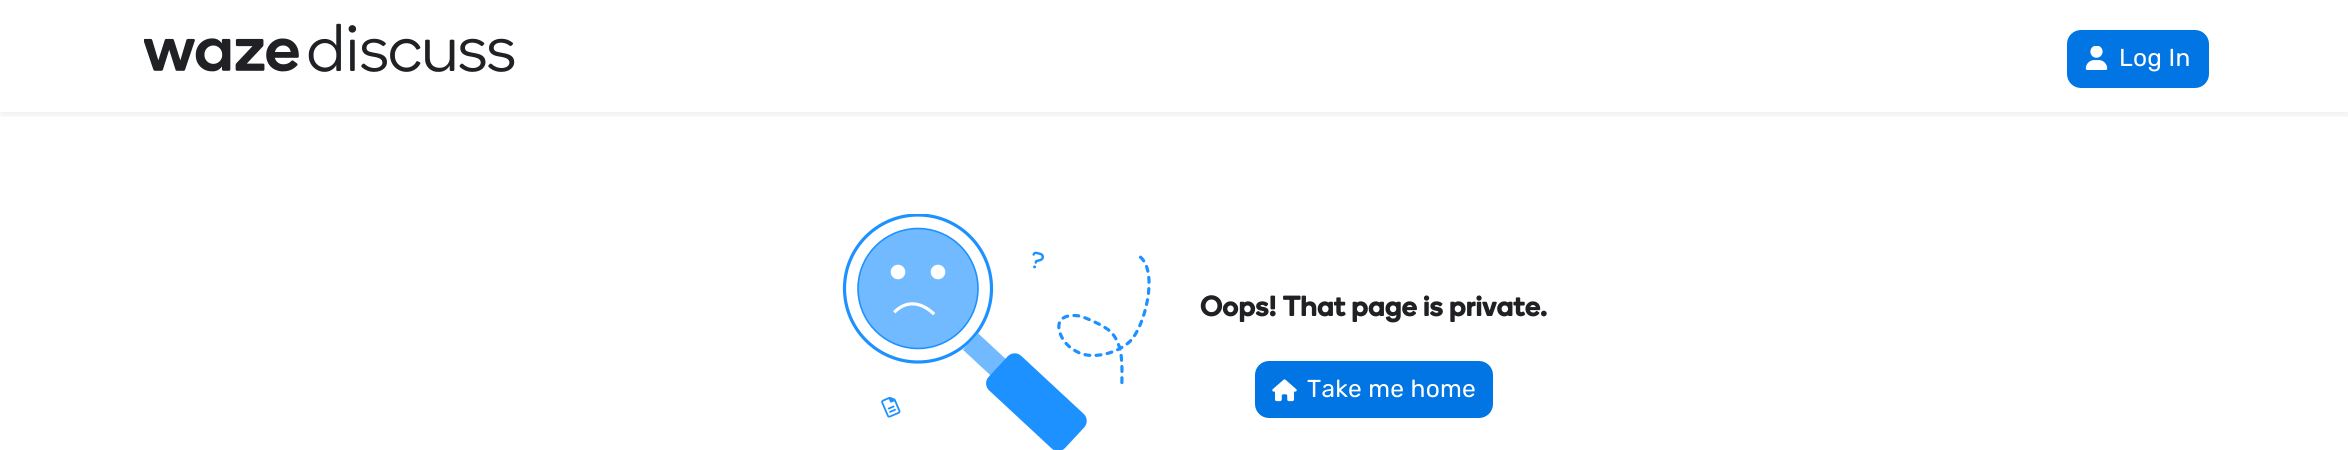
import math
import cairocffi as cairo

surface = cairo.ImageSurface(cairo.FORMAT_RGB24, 2348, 450)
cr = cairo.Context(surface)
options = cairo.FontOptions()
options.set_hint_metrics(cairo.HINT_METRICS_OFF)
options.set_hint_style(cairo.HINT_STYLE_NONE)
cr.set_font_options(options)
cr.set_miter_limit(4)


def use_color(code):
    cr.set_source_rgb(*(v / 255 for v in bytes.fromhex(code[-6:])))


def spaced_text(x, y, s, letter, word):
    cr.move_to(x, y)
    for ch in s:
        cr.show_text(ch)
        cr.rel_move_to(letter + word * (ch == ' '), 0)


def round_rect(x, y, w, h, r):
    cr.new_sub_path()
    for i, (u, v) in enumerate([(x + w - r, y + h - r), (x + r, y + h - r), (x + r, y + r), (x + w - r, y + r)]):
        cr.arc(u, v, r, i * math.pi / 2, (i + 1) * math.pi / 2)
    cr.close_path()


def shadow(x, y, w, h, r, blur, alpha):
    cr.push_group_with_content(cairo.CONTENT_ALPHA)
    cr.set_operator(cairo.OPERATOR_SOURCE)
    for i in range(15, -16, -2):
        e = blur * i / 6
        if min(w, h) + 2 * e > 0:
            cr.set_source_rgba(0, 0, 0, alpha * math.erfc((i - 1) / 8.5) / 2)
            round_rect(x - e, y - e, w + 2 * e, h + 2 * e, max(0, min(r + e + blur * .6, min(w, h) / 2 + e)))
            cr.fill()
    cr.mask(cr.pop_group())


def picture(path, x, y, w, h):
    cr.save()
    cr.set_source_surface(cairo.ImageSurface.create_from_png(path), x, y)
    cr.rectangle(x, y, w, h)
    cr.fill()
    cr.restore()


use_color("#ffffff")
cr.paint()
cr.save()
cr.rectangle(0, 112, 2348, 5)
cr.clip()
use_color("#000000")
shadow(0, 4, 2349, 112, 0, 3.5, 0.06)
cr.restore()
picture("img1.png", 144, 23, 371, 49)
use_color("#0075e3")
round_rect(2067, 30, 142, 58, 14)
cr.fill()
picture("img2.png", 2085, 46, 23, 24)
cr.select_font_face("Rubik")
cr.set_font_size(24.5)
use_color("#ffffff")
spaced_text(2119, 66, "Log In", 0.25, 0)
picture("img3.png", 842, 214, 309, 236)
cr.select_font_face("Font", cairo.FONT_SLANT_NORMAL, cairo.FONT_WEIGHT_BOLD)
cr.set_font_size(28)
use_color("#202124")
spaced_text(1200, 316, "Oops! That page is private.", 0.25, 0)
use_color("#0075e3")
round_rect(1255, 361, 238, 57, 14)
cr.fill()
picture("img4.png", 1272, 379, 25, 23)
cr.select_font_face("Rubik")
cr.set_font_size(24.5)
use_color("#ffffff")
spaced_text(1307, 397, "Take me home", 0.25, 0)
surface.write_to_png("result.png")
